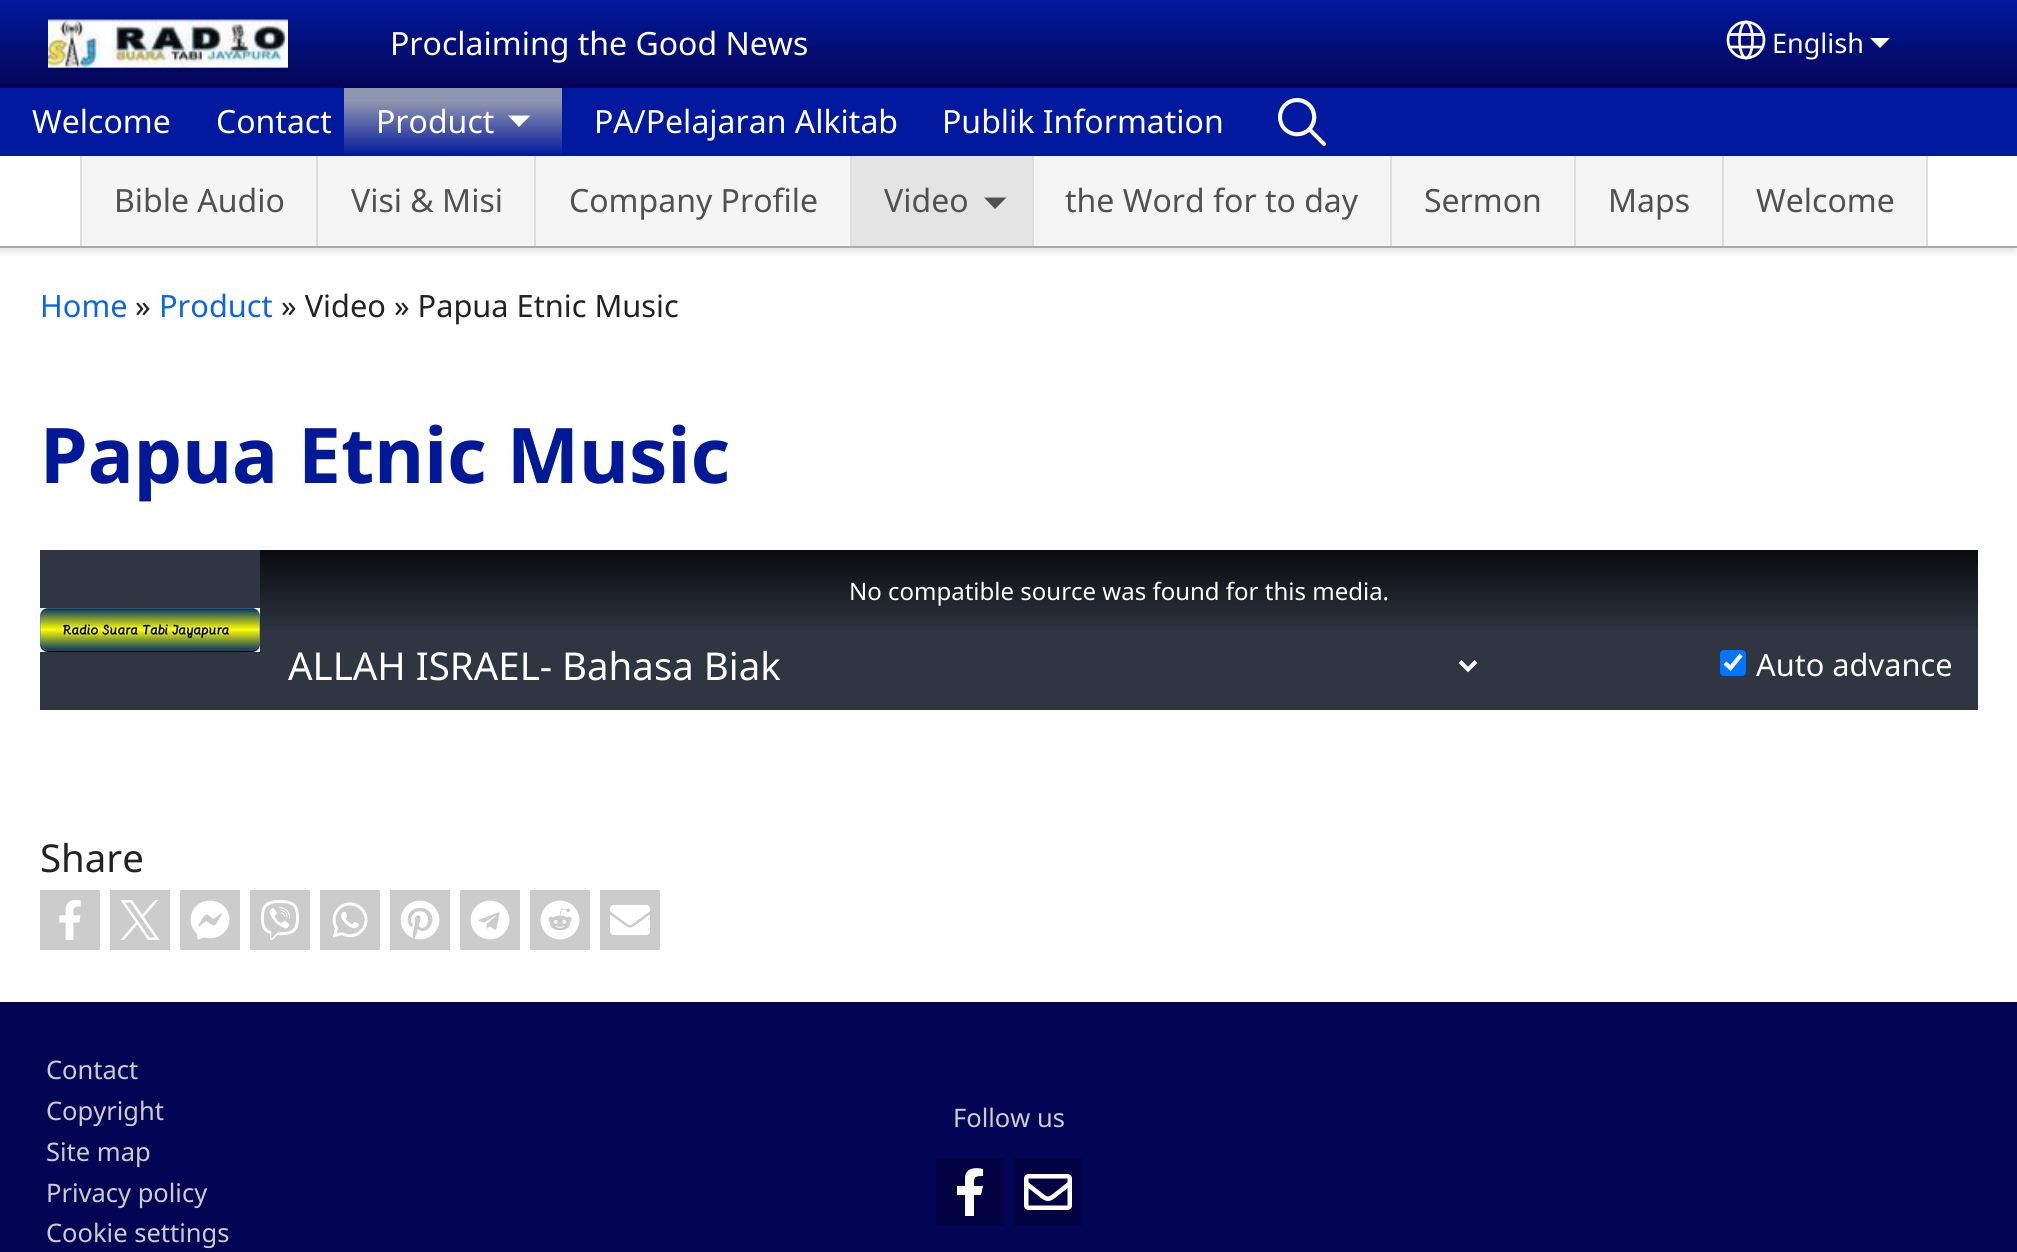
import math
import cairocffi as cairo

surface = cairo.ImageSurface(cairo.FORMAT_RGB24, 2017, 1252)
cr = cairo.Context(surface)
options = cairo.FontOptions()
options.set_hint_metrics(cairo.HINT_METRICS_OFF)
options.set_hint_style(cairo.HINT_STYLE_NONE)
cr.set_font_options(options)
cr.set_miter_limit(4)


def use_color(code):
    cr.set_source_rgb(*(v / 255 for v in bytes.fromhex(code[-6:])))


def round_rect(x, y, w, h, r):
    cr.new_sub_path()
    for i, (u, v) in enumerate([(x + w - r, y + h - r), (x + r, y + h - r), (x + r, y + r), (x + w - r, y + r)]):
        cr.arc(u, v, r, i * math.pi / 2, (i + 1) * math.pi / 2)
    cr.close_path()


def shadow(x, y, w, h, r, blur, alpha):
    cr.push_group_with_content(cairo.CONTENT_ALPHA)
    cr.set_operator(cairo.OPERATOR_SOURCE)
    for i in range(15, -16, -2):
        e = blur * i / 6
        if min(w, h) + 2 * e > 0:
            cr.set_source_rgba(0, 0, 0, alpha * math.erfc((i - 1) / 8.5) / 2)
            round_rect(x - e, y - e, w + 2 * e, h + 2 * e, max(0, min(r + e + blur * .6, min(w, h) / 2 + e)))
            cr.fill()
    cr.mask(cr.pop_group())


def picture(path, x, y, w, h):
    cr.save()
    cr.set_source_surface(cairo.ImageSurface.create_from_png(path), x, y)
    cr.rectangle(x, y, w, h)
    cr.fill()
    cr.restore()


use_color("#ffffff")
cr.paint()
gradient = cairo.LinearGradient(1009, 0, 1009, 88)
gradient.add_color_stop_rgba(0, 0.004, 0.098, 0.616, 1)
gradient.add_color_stop_rgba(1, 0.016, 0.016, 0.337, 1)
cr.set_source(gradient)
cr.rectangle(0, 0, 2017, 88)
cr.fill()
picture("img1.png", 48, 19, 240, 49)
cr.select_font_face("Noto Sans")
cr.set_font_size(32)
use_color("#ffffff")
cr.move_to(390, 55)
cr.show_text("Proclaiming the Good News")
cr.new_path()
cr.arc(1746, 40, 18, 0, 2 * math.pi)
use_color("#fffffe")
cr.set_line_width(2.7)
cr.stroke()
cr.new_path()
cr.move_to(1746, 22)
cr.curve_to(1749.5, 22, 1752.5, 30, 1752.5, 40)
cr.curve_to(1752.5, 50, 1749.5, 58, 1746, 58)
cr.curve_to(1742.5, 58, 1739.5, 50, 1739.5, 40)
cr.curve_to(1739.5, 30, 1742.5, 22, 1746, 22)
cr.close_path()
cr.stroke()
cr.set_source_rgba(1, 1, 0.996, 0.9)
cr.rectangle(1729, 33, 34, 3)
cr.fill()
cr.new_path()
cr.move_to(1728.5, 47)
cr.line_to(1763, 47)
use_color("#fffffe")
cr.stroke()
cr.set_font_size(27)
use_color("#ffffff")
cr.move_to(1772, 53)
cr.show_text("English")
use_color("#fffffe")
cr.new_path()
cr.move_to(1870, 38)
cr.line_to(1890, 38)
cr.line_to(1880, 48)
cr.close_path()
cr.fill()
use_color("#01199e")
cr.rectangle(0, 88, 2017, 68)
cr.fill()
cr.set_font_size(32)
use_color("#ffffff")
cr.move_to(32, 133)
cr.show_text("Welcome")
picture("img2.png", 1278, 98, 48, 48)
gradient = cairo.LinearGradient(453, 88, 453, 156)
gradient.add_color_stop_rgba(0.2, 0.561, 0.58, 0.686, 1)
gradient.add_color_stop_rgba(1, 0.004, 0.098, 0.62, 1)
cr.set_source(gradient)
cr.rectangle(344, 88, 218, 67)
cr.fill()
use_color("#ffffff")
cr.move_to(376, 133)
cr.show_text("Product")
use_color("#feffff")
cr.new_path()
cr.move_to(508, 115.5)
cr.line_to(530.5, 115.5)
cr.line_to(519, 127)
cr.close_path()
cr.fill()
cr.save()
cr.set_fill_rule(cairo.FILL_RULE_EVEN_ODD)
cr.new_path()
cr.move_to(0, 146)
cr.line_to(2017, 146)
cr.line_to(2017, 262)
cr.line_to(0, 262)
cr.close_path()
cr.move_to(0, 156)
cr.line_to(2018, 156)
cr.line_to(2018, 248)
cr.line_to(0, 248)
cr.close_path()
cr.clip()
use_color("#000000")
shadow(-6, 156, 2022, 96, 0, 3, 0.1)
cr.restore()
use_color("#aaaaaa")
cr.rectangle(0, 246, 2017, 2)
cr.fill()
use_color("#f5f5f5")
cr.rectangle(82, 156, 234, 90)
cr.fill()
use_color("#dddddd")
cr.rectangle(80, 156, 2, 90)
cr.fill()
use_color("#515151")
cr.move_to(114, 212)
cr.show_text("Bible Audio")
use_color("#f5f5f5")
cr.rectangle(318, 156, 216, 90)
cr.fill()
use_color("#dddddd")
cr.rectangle(316, 156, 2, 90)
cr.fill()
use_color("#515151")
cr.move_to(351, 212)
cr.show_text("Visi & Misi")
use_color("#f5f5f5")
cr.rectangle(536, 156, 314, 90)
cr.fill()
use_color("#dddddd")
cr.rectangle(534, 156, 2, 90)
cr.fill()
use_color("#515151")
cr.move_to(569, 212)
cr.show_text("Company Profile")
use_color("#e4e4e4")
cr.rectangle(852, 156, 180, 90)
cr.fill()
use_color("#dddddd")
cr.rectangle(850, 156, 2, 90)
cr.fill()
use_color("#515151")
cr.move_to(884, 212)
cr.show_text("Video")
cr.new_path()
cr.move_to(984, 197.5)
cr.line_to(1006.5, 197.5)
cr.line_to(995, 209)
cr.close_path()
cr.fill()
use_color("#f5f5f5")
cr.rectangle(1034, 156, 356, 90)
cr.fill()
use_color("#dddddd")
cr.rectangle(1032, 156, 2, 90)
cr.fill()
use_color("#515151")
cr.move_to(1065, 212)
cr.show_text("the Word for to day")
use_color("#f5f5f5")
cr.rectangle(1392, 156, 182, 90)
cr.fill()
use_color("#dddddd")
cr.rectangle(1390, 156, 2, 90)
cr.fill()
use_color("#515151")
cr.move_to(1424, 212)
cr.show_text("Sermon")
use_color("#f5f5f5")
cr.rectangle(1576, 156, 146, 90)
cr.fill()
use_color("#dddddd")
cr.rectangle(1574, 156, 2, 90)
cr.fill()
use_color("#515151")
cr.move_to(1608, 212)
cr.show_text("Maps")
use_color("#f5f5f5")
cr.rectangle(1724, 156, 202, 90)
cr.fill()
use_color("#dddddd")
cr.rectangle(1926, 156, 2, 90)
cr.fill()
cr.rectangle(1722, 156, 2, 90)
cr.fill()
use_color("#515151")
cr.move_to(1756, 212)
cr.show_text("Welcome")
use_color("#ffffff")
cr.move_to(216, 133)
cr.show_text("Contact")
cr.move_to(594, 133)
cr.show_text("PA/Pelajaran Alkitab")
cr.move_to(942, 133)
cr.show_text("Publik Information")
cr.set_font_size(30.75)
use_color("#0c66e4")
cr.move_to(40, 317)
cr.show_text("Home")
use_color("#222222")
cr.move_to(135, 317)
cr.show_text("»")
use_color("#0c66e4")
cr.move_to(159, 317)
cr.show_text("Product")
use_color("#222222")
cr.move_to(281, 317)
cr.show_text("» Video » Papua Etnic Music")
cr.select_font_face("Noto Sans", cairo.FONT_SLANT_NORMAL, cairo.FONT_WEIGHT_BOLD)
cr.set_font_size(76.75)
use_color("#011996")
cr.move_to(40, 483)
cr.show_text("Papua Etnic Music")
use_color("#2f3641")
cr.rectangle(40, 550, 1938, 160)
cr.fill()
picture("img3.png", 40, 608, 220, 44)
gradient = cairo.LinearGradient(1119, 550, 1119, 634)
gradient.add_color_stop_rgba(0, 0.035, 0.043, 0.051, 1)
gradient.add_color_stop_rgba(1, 0.184, 0.212, 0.255, 1)
cr.set_source(gradient)
cr.rectangle(260, 550, 1718, 80)
cr.fill()
cr.select_font_face("Noto Sans")
cr.set_font_size(24)
use_color("#ffffff")
cr.move_to(849, 600)
cr.show_text("No compatible source was found for this media.")
cr.new_path()
cr.move_to(1460, 661.5)
cr.line_to(1468, 669.5)
cr.line_to(1476, 661.5)
cr.set_line_width(4)
cr.stroke()
cr.set_font_size(38.4)
cr.move_to(288, 680)
cr.show_text("ALLAH ISRAEL- Bahasa Biak")
use_color("#0075ff")
round_rect(1720, 650, 26, 26, 4)
cr.fill()
cr.new_path()
cr.move_to(1725, 663)
cr.line_to(1730.5, 668)
cr.line_to(1741, 655)
use_color("#ffffff")
cr.set_line_width(4.2)
cr.stroke()
cr.set_font_size(30.75)
cr.move_to(1756, 676)
cr.show_text("Auto advance")
cr.set_font_size(38.4)
use_color("#222222")
cr.move_to(40, 872)
cr.show_text("Share")
use_color("#cccccc")
cr.rectangle(40, 890, 60, 60)
cr.fill()
picture("img4.png", 59, 900, 22, 40)
cr.rectangle(110, 890, 60, 60)
cr.fill()
picture("img5.png", 120, 900, 40, 40)
cr.rectangle(180, 890, 60, 60)
cr.fill()
picture("img6.png", 190, 900, 40, 40)
cr.rectangle(250, 890, 60, 60)
cr.fill()
picture("img7.png", 261, 900, 38, 40)
cr.rectangle(320, 890, 60, 60)
cr.fill()
picture("img8.png", 332, 902, 36, 36)
cr.rectangle(390, 890, 60, 60)
cr.fill()
picture("img9.png", 400, 900, 40, 40)
cr.rectangle(460, 890, 60, 60)
cr.fill()
picture("img10.png", 470, 900, 40, 40)
cr.rectangle(530, 890, 60, 60)
cr.fill()
picture("img11.png", 540, 900, 40, 40)
cr.rectangle(600, 890, 60, 60)
cr.fill()
picture("img12.png", 610, 905, 40, 30)
use_color("#040455")
cr.rectangle(0, 1002, 2017, 250)
cr.fill()
cr.set_font_size(25.5)
use_color("#cccccc")
cr.move_to(46, 1079)
cr.show_text("Contact")
cr.move_to(46, 1120)
cr.show_text("Copyright")
cr.move_to(46, 1161)
cr.show_text("Site map")
cr.move_to(46, 1202)
cr.show_text("Privacy policy")
cr.move_to(46, 1242)
cr.show_text("Cookie settings")
cr.move_to(953, 1127)
cr.show_text("Follow us")
use_color("#030344")
cr.rectangle(936, 1158, 68, 68)
cr.fill()
use_color("#ffffff")
cr.new_path()
cr.move_to(981, 1195)
cr.line_to(983, 1186)
cr.line_to(974, 1186)
cr.curve_to(974, 1178, 973, 1176, 983, 1176)
cr.line_to(983, 1169)
cr.curve_to(975, 1167, 966, 1168, 965, 1177)
cr.line_to(965, 1186)
cr.line_to(957, 1186)
cr.line_to(957, 1195)
cr.line_to(965, 1195)
cr.line_to(965, 1216)
cr.line_to(974, 1216)
cr.line_to(974, 1195)
cr.close_path()
cr.fill()
use_color("#030344")
cr.rectangle(1014, 1158, 68, 68)
cr.fill()
picture("img13.png", 1024, 1174, 48, 36)
surface.write_to_png("result.png")
